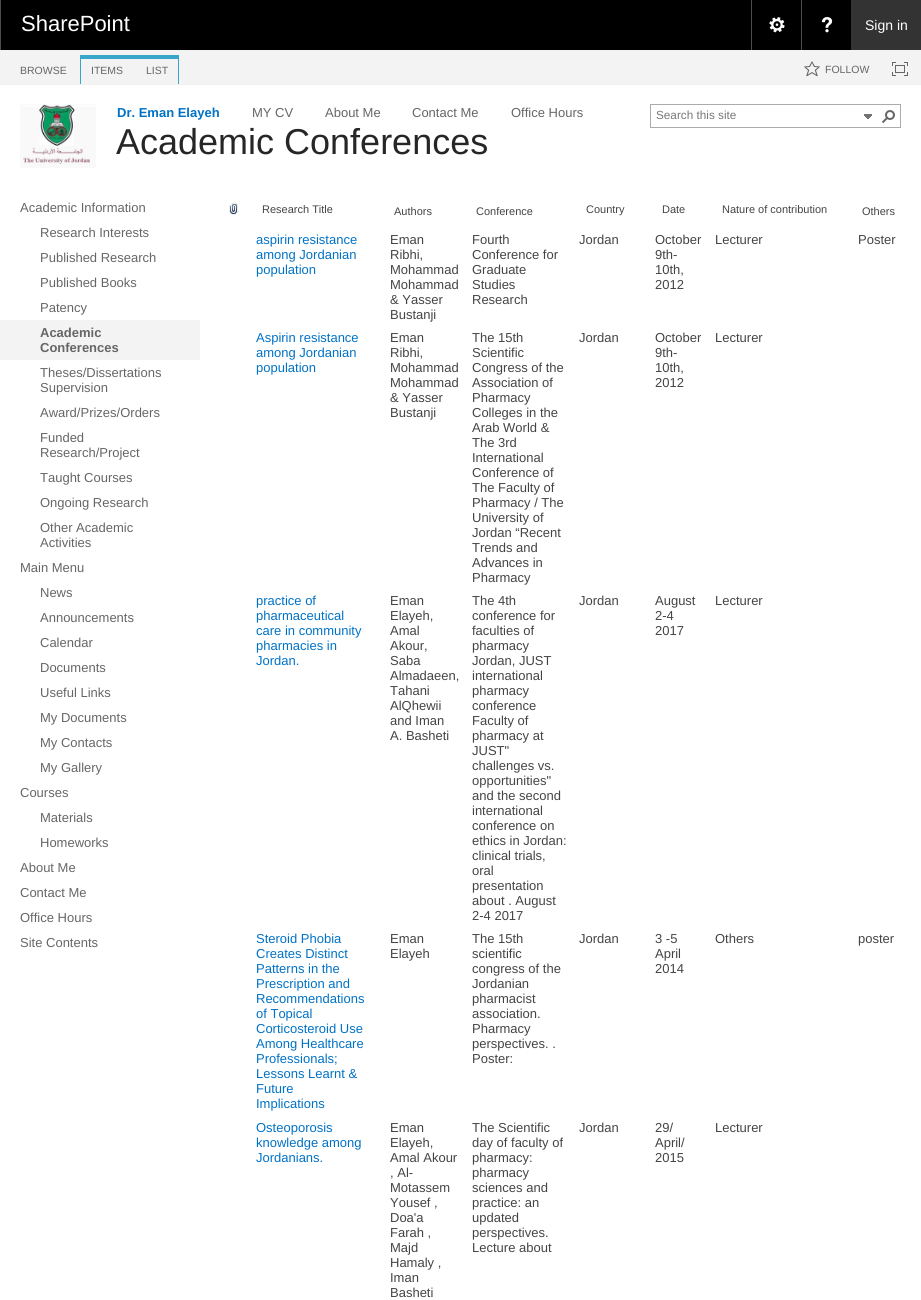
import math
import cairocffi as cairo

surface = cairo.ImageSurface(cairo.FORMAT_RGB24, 921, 1300)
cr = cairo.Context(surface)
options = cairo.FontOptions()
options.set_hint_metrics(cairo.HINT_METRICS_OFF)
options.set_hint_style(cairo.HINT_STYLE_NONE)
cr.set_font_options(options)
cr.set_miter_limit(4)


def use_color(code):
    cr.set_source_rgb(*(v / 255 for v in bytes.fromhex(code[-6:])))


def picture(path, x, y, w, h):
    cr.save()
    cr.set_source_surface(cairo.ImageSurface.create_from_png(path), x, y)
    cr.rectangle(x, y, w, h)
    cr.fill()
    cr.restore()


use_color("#ffffff")
cr.paint()
use_color("#000000")
cr.rectangle(1, 0, 850, 50)
cr.fill()
use_color("#4d4d4d")
cr.rectangle(0, 0, 1, 50)
cr.fill()
cr.select_font_face("Liberation Sans")
cr.set_font_size(22)
use_color("#ffffff")
cr.move_to(21, 31)
cr.show_text("SharePoint")
use_color("#4d4d4d")
cr.rectangle(751, 0, 1, 50)
cr.fill()
picture("img1.png", 769, 17, 16, 16)
cr.rectangle(801, 0, 1, 50)
cr.fill()
picture("img2.png", 821, 17, 12, 16)
use_color("#333333")
cr.rectangle(851, 0, 70, 50)
cr.fill()
cr.set_font_size(14)
use_color("#ffffff")
cr.move_to(865, 30)
cr.show_text("Sign in")
use_color("#f3f3f3")
cr.rectangle(0, 50, 921, 34)
cr.fill()
use_color("#f0f0f0")
cr.rectangle(0, 84, 921, 1)
cr.fill()
cr.set_font_size(10.5)
use_color("#666666")
cr.move_to(20, 74)
cr.show_text("BROWSE")
use_color("#36a7ca")
cr.rectangle(80, 55, 99, 4)
cr.fill()
cr.rectangle(80, 59, 1, 25)
cr.fill()
use_color("#666666")
cr.move_to(91, 74)
cr.show_text("ITEMS")
use_color("#36a7ca")
cr.rectangle(178, 59, 1, 25)
cr.fill()
use_color("#666666")
cr.move_to(146, 74)
cr.show_text("LIST")
picture("img3.png", 804, 61, 16, 16)
cr.move_to(825, 73)
cr.show_text("FOLLOW")
picture("img4.png", 892, 62, 16, 14)
picture("img5.png", 20, 104, 76, 64)
cr.select_font_face("Liberation Sans", cairo.FONT_SLANT_NORMAL, cairo.FONT_WEIGHT_BOLD)
cr.set_font_size(13)
use_color("#0072c6")
cr.move_to(117, 117)
cr.show_text("Dr. Eman Elayeh")
cr.select_font_face("Liberation Sans")
use_color("#666666")
cr.move_to(252, 117)
cr.show_text("MY CV")
cr.move_to(325, 117)
cr.show_text("About Me")
cr.move_to(412, 117)
cr.show_text("Contact Me")
cr.move_to(511, 117)
cr.show_text("Office Hours")
cr.set_font_size(36)
use_color("#262626")
cr.move_to(116, 154)
cr.show_text("Academic Conferences")
cr.rectangle(650.5, 104.5, 250, 23)
use_color("#ababab")
cr.set_line_width(1)
cr.stroke()
cr.set_font_size(11.75)
use_color("#777777")
cr.move_to(656, 119)
cr.show_text("Search this site")
picture("img6.png", 864, 114, 8, 5)
picture("img7.png", 881, 110, 14, 14)
cr.set_font_size(13)
use_color("#666666")
cr.move_to(20, 212)
cr.show_text("Academic Information")
cr.move_to(40, 237)
cr.show_text("Research Interests")
cr.move_to(40, 262)
cr.show_text("Published Research")
cr.move_to(40, 287)
cr.show_text("Published Books")
cr.move_to(40, 312)
cr.show_text("Patency")
use_color("#f3f3f3")
cr.rectangle(0, 320, 200, 40)
cr.fill()
cr.select_font_face("Liberation Sans", cairo.FONT_SLANT_NORMAL, cairo.FONT_WEIGHT_BOLD)
use_color("#666666")
cr.move_to(40, 337)
cr.show_text("Academic")
cr.move_to(40, 352)
cr.show_text("Conferences")
cr.select_font_face("Liberation Sans")
cr.move_to(40, 377)
cr.show_text("Theses/Dissertations")
cr.move_to(40, 392)
cr.show_text("Supervision")
cr.move_to(40, 417)
cr.show_text("Award/Prizes/Orders")
cr.move_to(40, 442)
cr.show_text("Funded")
cr.move_to(40, 457)
cr.show_text("Research/Project")
cr.move_to(40, 482)
cr.show_text("Taught Courses")
cr.move_to(40, 507)
cr.show_text("Ongoing Research")
cr.move_to(40, 532)
cr.show_text("Other Academic")
cr.move_to(40, 547)
cr.show_text("Activities")
cr.move_to(20, 572)
cr.show_text("Main Menu")
cr.move_to(40, 597)
cr.show_text("News")
cr.move_to(40, 622)
cr.show_text("Announcements")
cr.move_to(40, 647)
cr.show_text("Calendar")
cr.move_to(40, 672)
cr.show_text("Documents")
cr.move_to(40, 697)
cr.show_text("Useful Links")
cr.move_to(40, 722)
cr.show_text("My Documents")
cr.move_to(40, 747)
cr.show_text("My Contacts")
cr.move_to(40, 772)
cr.show_text("My Gallery")
cr.move_to(20, 797)
cr.show_text("Courses")
cr.move_to(40, 822)
cr.show_text("Materials")
cr.move_to(40, 847)
cr.show_text("Homeworks")
cr.move_to(20, 872)
cr.show_text("About Me")
cr.move_to(20, 897)
cr.show_text("Contact Me")
cr.move_to(20, 922)
cr.show_text("Office Hours")
cr.move_to(20, 947)
cr.show_text("Site Contents")
picture("img8.png", 229, 203, 9, 12)
cr.set_font_size(11)
use_color("#444444")
cr.move_to(262, 213)
cr.show_text("Research Title")
cr.move_to(394, 215)
cr.show_text("Authors")
cr.move_to(476, 215)
cr.show_text("Conference")
cr.move_to(586, 213)
cr.show_text("Country")
cr.move_to(662, 213)
cr.show_text("Date")
cr.move_to(722, 213)
cr.show_text("Nature of contribution")
cr.move_to(862, 215)
cr.show_text("Others")
cr.set_font_size(13)
use_color("#0072c6")
cr.move_to(256, 244)
cr.show_text("aspirin resistance")
cr.move_to(256, 259)
cr.show_text("among Jordanian")
cr.move_to(256, 274)
cr.show_text("population")
use_color("#444444")
cr.move_to(390, 244)
cr.show_text("Eman")
cr.move_to(390, 259)
cr.show_text("Ribhi,")
cr.move_to(390, 274)
cr.show_text("Mohammad")
cr.move_to(390, 289)
cr.show_text("Mohammad")
cr.move_to(390, 304)
cr.show_text("& Yasser")
cr.move_to(390, 319)
cr.show_text("Bustanji")
cr.move_to(472, 244)
cr.show_text("Fourth")
cr.move_to(472, 259)
cr.show_text("Conference for")
cr.move_to(472, 274)
cr.show_text("Graduate")
cr.move_to(472, 289)
cr.show_text("Studies")
cr.move_to(472, 304)
cr.show_text("Research")
cr.move_to(579, 244)
cr.show_text("Jordan")
cr.move_to(655, 244)
cr.show_text("October")
cr.move_to(655, 259)
cr.show_text("9th-")
cr.move_to(655, 274)
cr.show_text("10th,")
cr.move_to(655, 289)
cr.show_text("2012")
cr.move_to(715, 244)
cr.show_text("Lecturer")
cr.move_to(858, 244)
cr.show_text("Poster")
use_color("#0072c6")
cr.move_to(256, 342)
cr.show_text("Aspirin resistance")
cr.move_to(256, 357)
cr.show_text("among Jordanian")
cr.move_to(256, 372)
cr.show_text("population")
use_color("#444444")
cr.move_to(390, 342)
cr.show_text("Eman")
cr.move_to(390, 357)
cr.show_text("Ribhi,")
cr.move_to(390, 372)
cr.show_text("Mohammad")
cr.move_to(390, 387)
cr.show_text("Mohammad")
cr.move_to(390, 402)
cr.show_text("& Yasser")
cr.move_to(390, 417)
cr.show_text("Bustanji")
cr.move_to(472, 342)
cr.show_text("The 15th")
cr.move_to(472, 357)
cr.show_text("Scientific")
cr.move_to(472, 372)
cr.show_text("Congress of the")
cr.move_to(472, 387)
cr.show_text("Association of")
cr.move_to(472, 402)
cr.show_text("Pharmacy")
cr.move_to(472, 417)
cr.show_text("Colleges in the")
cr.move_to(472, 432)
cr.show_text("Arab World &")
cr.move_to(472, 447)
cr.show_text("The 3rd")
cr.move_to(472, 462)
cr.show_text("International")
cr.move_to(472, 477)
cr.show_text("Conference of")
cr.move_to(472, 492)
cr.show_text("The Faculty of")
cr.move_to(472, 507)
cr.show_text("Pharmacy / The")
cr.move_to(472, 522)
cr.show_text("University of")
cr.move_to(472, 537)
cr.show_text("Jordan “Recent")
cr.move_to(472, 552)
cr.show_text("Trends and")
cr.move_to(472, 567)
cr.show_text("Advances in")
cr.move_to(472, 582)
cr.show_text("Pharmacy")
cr.move_to(579, 342)
cr.show_text("Jordan")
cr.move_to(655, 342)
cr.show_text("October")
cr.move_to(655, 357)
cr.show_text("9th-")
cr.move_to(655, 372)
cr.show_text("10th,")
cr.move_to(655, 387)
cr.show_text("2012")
cr.move_to(715, 342)
cr.show_text("Lecturer")
use_color("#0072c6")
cr.move_to(256, 605)
cr.show_text("practice of")
cr.move_to(256, 620)
cr.show_text("pharmaceutical")
cr.move_to(256, 635)
cr.show_text("care in community")
cr.move_to(256, 650)
cr.show_text("pharmacies in")
cr.move_to(256, 665)
cr.show_text("Jordan.")
use_color("#444444")
cr.move_to(390, 605)
cr.show_text("Eman")
cr.move_to(390, 620)
cr.show_text("Elayeh,")
cr.move_to(390, 635)
cr.show_text("Amal")
cr.move_to(390, 650)
cr.show_text("Akour,")
cr.move_to(390, 665)
cr.show_text("Saba")
cr.move_to(390, 680)
cr.show_text("Almadaeen,")
cr.move_to(390, 695)
cr.show_text("Tahani")
cr.move_to(390, 710)
cr.show_text("AlQhewii")
cr.move_to(390, 725)
cr.show_text("and Iman")
cr.move_to(390, 740)
cr.show_text("A. Basheti")
cr.move_to(472, 605)
cr.show_text("The 4th")
cr.move_to(472, 620)
cr.show_text("conference for")
cr.move_to(472, 635)
cr.show_text("faculties of")
cr.move_to(472, 650)
cr.show_text("pharmacy")
cr.move_to(472, 665)
cr.show_text("Jordan, JUST")
cr.move_to(472, 680)
cr.show_text("international")
cr.move_to(472, 695)
cr.show_text("pharmacy")
cr.move_to(472, 710)
cr.show_text("conference")
cr.move_to(472, 725)
cr.show_text("Faculty of")
cr.move_to(472, 740)
cr.show_text("pharmacy at")
cr.move_to(472, 755)
cr.show_text("JUST\"")
cr.move_to(472, 770)
cr.show_text("challenges vs.")
cr.move_to(472, 785)
cr.show_text("opportunities\"")
cr.move_to(472, 800)
cr.show_text("and the second")
cr.move_to(472, 815)
cr.show_text("international")
cr.move_to(472, 830)
cr.show_text("conference on")
cr.move_to(472, 845)
cr.show_text("ethics in Jordan:")
cr.move_to(472, 860)
cr.show_text("clinical trials,")
cr.move_to(472, 875)
cr.show_text("oral")
cr.move_to(472, 890)
cr.show_text("presentation")
cr.move_to(472, 905)
cr.show_text("about . August")
cr.move_to(472, 920)
cr.show_text("2-4 2017")
cr.move_to(579, 605)
cr.show_text("Jordan")
cr.move_to(655, 605)
cr.show_text("August")
cr.move_to(655, 620)
cr.show_text("2-4")
cr.move_to(655, 635)
cr.show_text("2017")
cr.move_to(715, 605)
cr.show_text("Lecturer")
use_color("#0072c6")
cr.move_to(256, 943)
cr.show_text("Steroid Phobia")
cr.move_to(256, 958)
cr.show_text("Creates Distinct")
cr.move_to(256, 973)
cr.show_text("Patterns in the")
cr.move_to(256, 988)
cr.show_text("Prescription and")
cr.move_to(256, 1003)
cr.show_text("Recommendations")
cr.move_to(256, 1018)
cr.show_text("of Topical")
cr.move_to(256, 1033)
cr.show_text("Corticosteroid Use")
cr.move_to(256, 1048)
cr.show_text("Among Healthcare")
cr.move_to(256, 1063)
cr.show_text("Professionals;")
cr.move_to(256, 1078)
cr.show_text("Lessons Learnt &")
cr.move_to(256, 1093)
cr.show_text("Future")
cr.move_to(256, 1108)
cr.show_text("Implications")
use_color("#444444")
cr.move_to(390, 943)
cr.show_text("Eman")
cr.move_to(390, 958)
cr.show_text("Elayeh")
cr.move_to(472, 943)
cr.show_text("The 15th")
cr.move_to(472, 958)
cr.show_text("scientific")
cr.move_to(472, 973)
cr.show_text("congress of the")
cr.move_to(472, 988)
cr.show_text("Jordanian")
cr.move_to(472, 1003)
cr.show_text("pharmacist")
cr.move_to(472, 1018)
cr.show_text("association.")
cr.move_to(472, 1033)
cr.show_text("Pharmacy")
cr.move_to(472, 1048)
cr.show_text("perspectives. .")
cr.move_to(472, 1063)
cr.show_text("Poster:")
cr.move_to(579, 943)
cr.show_text("Jordan")
cr.move_to(655, 943)
cr.show_text("3 -5")
cr.move_to(655, 958)
cr.show_text("April")
cr.move_to(655, 973)
cr.show_text("2014")
cr.move_to(715, 943)
cr.show_text("Others")
cr.move_to(858, 943)
cr.show_text("poster")
use_color("#0072c6")
cr.move_to(256, 1132)
cr.show_text("Osteoporosis")
cr.move_to(256, 1147)
cr.show_text("knowledge among")
cr.move_to(256, 1162)
cr.show_text("Jordanians.")
use_color("#444444")
cr.move_to(390, 1132)
cr.show_text("Eman")
cr.move_to(390, 1147)
cr.show_text("Elayeh,")
cr.move_to(390, 1162)
cr.show_text("Amal Akour")
cr.move_to(390, 1177)
cr.show_text(", Al-")
cr.move_to(390, 1192)
cr.show_text("Motassem")
cr.move_to(390, 1207)
cr.show_text("Yousef ,")
cr.move_to(390, 1222)
cr.show_text("Doa'a")
cr.move_to(390, 1237)
cr.show_text("Farah ,")
cr.move_to(390, 1252)
cr.show_text("Majd")
cr.move_to(390, 1267)
cr.show_text("Hamaly ,")
cr.move_to(390, 1282)
cr.show_text("Iman")
cr.move_to(390, 1297)
cr.show_text("Basheti")
cr.move_to(472, 1132)
cr.show_text("The Scientific")
cr.move_to(472, 1147)
cr.show_text("day of faculty of")
cr.move_to(472, 1162)
cr.show_text("pharmacy:")
cr.move_to(472, 1177)
cr.show_text("pharmacy")
cr.move_to(472, 1192)
cr.show_text("sciences and")
cr.move_to(472, 1207)
cr.show_text("practice: an")
cr.move_to(472, 1222)
cr.show_text("updated")
cr.move_to(472, 1237)
cr.show_text("perspectives.")
cr.move_to(472, 1252)
cr.show_text("Lecture about")
cr.move_to(579, 1132)
cr.show_text("Jordan")
cr.move_to(655, 1132)
cr.show_text("29/")
cr.move_to(655, 1147)
cr.show_text("April/")
cr.move_to(655, 1162)
cr.show_text("2015")
cr.move_to(715, 1132)
cr.show_text("Lecturer")
surface.write_to_png("result.png")
